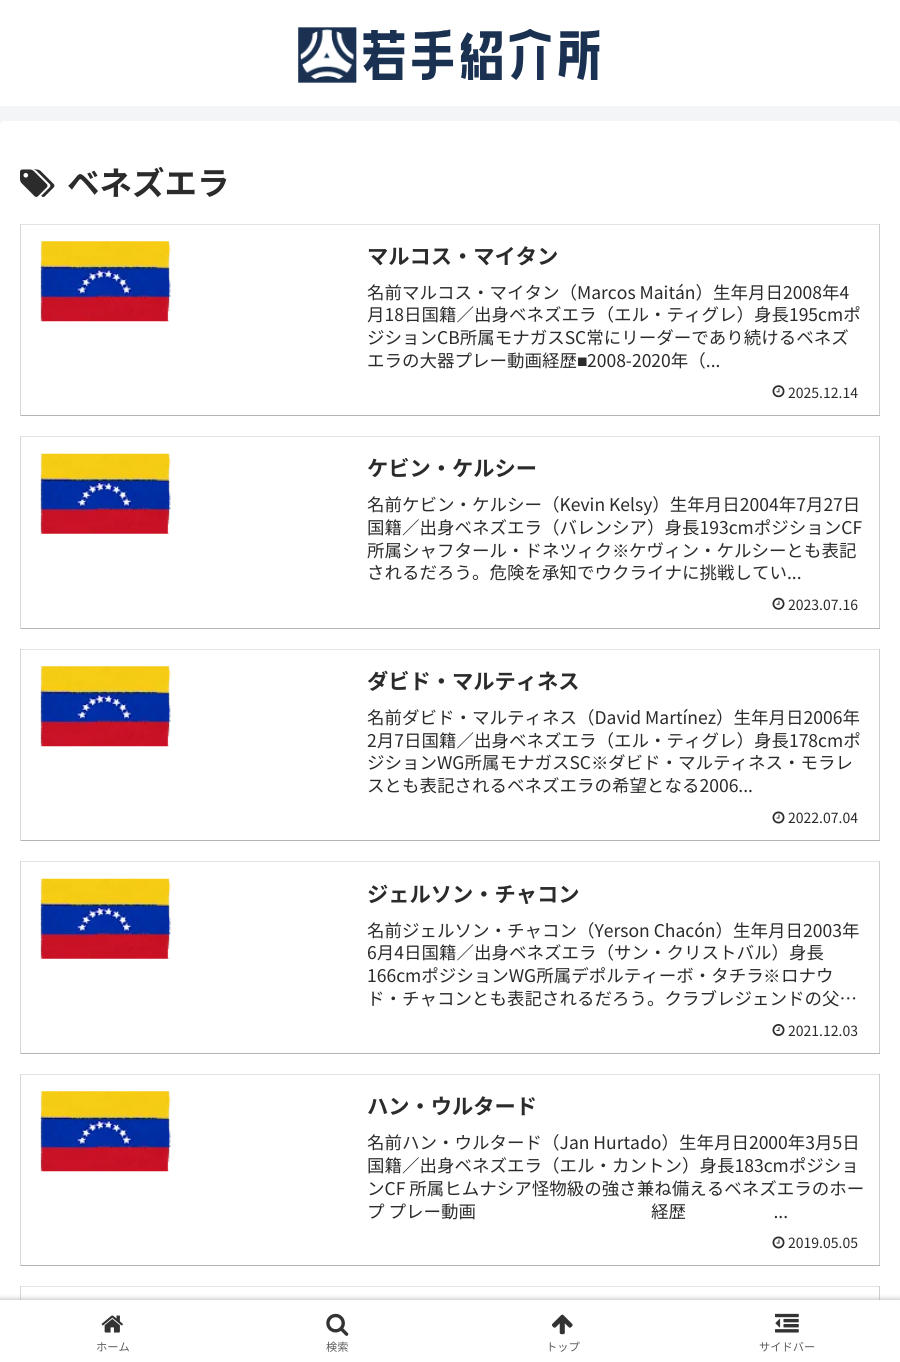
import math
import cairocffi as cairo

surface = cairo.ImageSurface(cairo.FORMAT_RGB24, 900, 1362)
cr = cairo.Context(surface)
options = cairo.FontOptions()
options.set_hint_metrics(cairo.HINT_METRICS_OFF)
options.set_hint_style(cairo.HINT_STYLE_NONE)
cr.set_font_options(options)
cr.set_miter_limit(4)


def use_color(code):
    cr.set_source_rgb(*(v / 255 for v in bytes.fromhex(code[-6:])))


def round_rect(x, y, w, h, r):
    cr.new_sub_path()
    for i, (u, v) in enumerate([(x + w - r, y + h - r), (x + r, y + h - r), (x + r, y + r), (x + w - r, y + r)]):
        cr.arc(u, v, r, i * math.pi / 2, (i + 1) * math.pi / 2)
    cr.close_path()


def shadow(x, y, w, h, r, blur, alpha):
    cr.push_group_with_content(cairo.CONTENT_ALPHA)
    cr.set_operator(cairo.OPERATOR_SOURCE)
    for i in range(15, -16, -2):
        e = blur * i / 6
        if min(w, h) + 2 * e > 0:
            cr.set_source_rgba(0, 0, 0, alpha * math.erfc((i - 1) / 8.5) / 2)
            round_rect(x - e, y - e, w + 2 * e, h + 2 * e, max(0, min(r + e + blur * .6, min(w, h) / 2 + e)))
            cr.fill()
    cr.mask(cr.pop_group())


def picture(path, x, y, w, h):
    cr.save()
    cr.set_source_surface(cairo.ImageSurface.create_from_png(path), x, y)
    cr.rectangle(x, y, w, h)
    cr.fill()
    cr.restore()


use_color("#f4f5f7")
cr.paint()
use_color("#ffffff")
cr.rectangle(0, 0, 900, 106)
cr.fill()
picture("img1.png", 298, 27, 302, 56)
round_rect(0, 121, 900, 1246, 5)
cr.fill()
picture("img2.png", 20, 169, 35, 28)
cr.select_font_face("Noto Sans JP", cairo.FONT_SLANT_NORMAL, cairo.FONT_WEIGHT_BOLD)
cr.set_font_size(32.5)
use_color("#2b2b2b")
cr.move_to(67, 195)
cr.show_text("ベネズエラ")
use_color("#e3e3e3")
cr.rectangle(20, 224, 860, 1)
cr.fill()
use_color("#cecece")
cr.rectangle(879, 224, 1, 192)
cr.fill()
use_color("#b4b4b4")
cr.rectangle(20, 415, 860, 1)
cr.fill()
use_color("#d6d6d6")
cr.rectangle(20, 224, 1, 192)
cr.fill()
picture("img3.png", 40, 241, 131, 81)
cr.set_font_size(21.25)
use_color("#2b2b2b")
cr.move_to(367, 264)
cr.show_text("マルコス・マイタン")
cr.select_font_face("Noto Sans JP")
cr.set_font_size(17.5)
cr.move_to(367, 299)
cr.show_text("名前マルコス・マイタン（Marcos Maitán）生年月日2008年4")
cr.move_to(367, 321)
cr.show_text("月18日国籍／出身ベネズエラ（エル・ティグレ）身長195cmポ")
cr.move_to(367, 344)
cr.show_text("ジションCB所属モナガスSC常にリーダーであり続けるベネズ")
cr.move_to(367, 367)
cr.show_text("エラの大器プレー動画経歴")
cr.select_font_face("Liberation Sans")
cr.move_to(577, 367)
cr.show_text("■")
cr.select_font_face("Noto Sans JP")
cr.move_to(587, 367)
cr.show_text("2008-2020年（...")
picture("img4.png", 772, 385, 13, 13)
cr.set_font_size(14)
cr.move_to(788, 398)
cr.show_text("2025.12.14")
use_color("#e3e3e3")
cr.rectangle(20, 436, 860, 1)
cr.fill()
use_color("#cecece")
cr.rectangle(879, 436, 1, 193)
cr.fill()
use_color("#b4b4b4")
cr.rectangle(20, 628, 860, 1)
cr.fill()
use_color("#d6d6d6")
cr.rectangle(20, 436, 1, 193)
cr.fill()
picture("img5.png", 40, 453, 131, 81)
cr.select_font_face("Noto Sans JP", cairo.FONT_SLANT_NORMAL, cairo.FONT_WEIGHT_BOLD)
cr.set_font_size(21.25)
use_color("#2b2b2b")
cr.move_to(367, 476)
cr.show_text("ケビン・ケルシー")
cr.select_font_face("Noto Sans JP")
cr.set_font_size(17.5)
cr.move_to(367, 511)
cr.show_text("名前ケビン・ケルシー（Kevin Kelsy）生年月日2004年7月27日")
cr.move_to(367, 534)
cr.show_text("国籍／出身ベネズエラ（バレンシア）身長193cmポジションCF")
cr.move_to(367, 557)
cr.show_text("所属シャフタール・ドネツィク")
cr.select_font_face("WenQuanYi Zen Hei Medium")
cr.move_to(612, 557)
cr.show_text("※")
cr.select_font_face("Noto Sans JP")
cr.move_to(629, 557)
cr.show_text("ケヴィン・ケルシーとも表記")
cr.move_to(367, 579)
cr.show_text("されるだろう。危険を承知でウクライナに挑戦してい...")
picture("img6.png", 772, 597, 13, 13)
cr.set_font_size(14)
cr.move_to(788, 610)
cr.show_text("2023.07.16")
use_color("#e3e3e3")
cr.rectangle(20, 649, 860, 1)
cr.fill()
use_color("#cecece")
cr.rectangle(879, 649, 1, 192)
cr.fill()
use_color("#b4b4b4")
cr.rectangle(20, 840, 860, 1)
cr.fill()
use_color("#d6d6d6")
cr.rectangle(20, 649, 1, 192)
cr.fill()
picture("img3.png", 40, 666, 131, 81)
cr.select_font_face("Noto Sans JP", cairo.FONT_SLANT_NORMAL, cairo.FONT_WEIGHT_BOLD)
cr.set_font_size(21.25)
use_color("#2b2b2b")
cr.move_to(367, 689)
cr.show_text("ダビド・マルティネス")
cr.select_font_face("Noto Sans JP")
cr.set_font_size(17.5)
cr.move_to(367, 724)
cr.show_text("名前ダビド・マルティネス（David Martínez）生年月日2006年")
cr.move_to(367, 747)
cr.show_text("2月7日国籍／出身ベネズエラ（エル・ティグレ）身長178cmポ")
cr.move_to(367, 769)
cr.show_text("ジションWG所属モナガスSC")
cr.select_font_face("WenQuanYi Zen Hei Medium")
cr.move_to(591, 769)
cr.show_text("※")
cr.select_font_face("Noto Sans JP")
cr.move_to(608, 769)
cr.show_text("ダビド・マルティネス・モラレ")
cr.move_to(367, 792)
cr.show_text("スとも表記されるベネズエラの希望となる2006...")
picture("img7.png", 772, 811, 13, 13)
cr.set_font_size(14)
cr.move_to(788, 823)
cr.show_text("2022.07.04")
use_color("#e3e3e3")
cr.rectangle(20, 861, 860, 1)
cr.fill()
use_color("#cecece")
cr.rectangle(879, 861, 1, 193)
cr.fill()
use_color("#b4b4b4")
cr.rectangle(20, 1053, 860, 1)
cr.fill()
use_color("#d6d6d6")
cr.rectangle(20, 861, 1, 193)
cr.fill()
picture("img5.png", 40, 878, 131, 81)
cr.select_font_face("Noto Sans JP", cairo.FONT_SLANT_NORMAL, cairo.FONT_WEIGHT_BOLD)
cr.set_font_size(21.25)
use_color("#2b2b2b")
cr.move_to(367, 902)
cr.show_text("ジェルソン・チャコン")
cr.select_font_face("Noto Sans JP")
cr.set_font_size(17.5)
cr.move_to(367, 937)
cr.show_text("名前ジェルソン・チャコン（Yerson Chacón）生年月日2003年")
cr.move_to(367, 959)
cr.show_text("6月4日国籍／出身ベネズエラ（サン・クリストバル）身長")
cr.move_to(367, 982)
cr.show_text("166cmポジションWG所属デポルティーボ・タチラ")
cr.select_font_face("WenQuanYi Zen Hei Medium")
cr.move_to(763, 982)
cr.show_text("※")
cr.select_font_face("Noto Sans JP")
cr.move_to(781, 982)
cr.show_text("ロナウ")
cr.move_to(367, 1005)
cr.show_text("ド・チャコンとも表記されるだろう。クラブレジェンドの父…")
picture("img8.png", 772, 1024, 13, 12)
cr.set_font_size(14)
cr.move_to(788, 1036)
cr.show_text("2021.12.03")
use_color("#e3e3e3")
cr.rectangle(20, 1074, 860, 1)
cr.fill()
use_color("#cecece")
cr.rectangle(879, 1074, 1, 192)
cr.fill()
use_color("#b4b4b4")
cr.rectangle(20, 1265, 860, 1)
cr.fill()
use_color("#d6d6d6")
cr.rectangle(20, 1074, 1, 192)
cr.fill()
picture("img9.png", 40, 1091, 131, 81)
cr.select_font_face("Noto Sans JP", cairo.FONT_SLANT_NORMAL, cairo.FONT_WEIGHT_BOLD)
cr.set_font_size(21.25)
use_color("#2b2b2b")
cr.move_to(367, 1114)
cr.show_text("ハン・ウルタード")
cr.select_font_face("Noto Sans JP")
cr.set_font_size(17.5)
cr.move_to(367, 1149)
cr.show_text("名前ハン・ウルタード（Jan Hurtado）生年月日2000年3月5日")
cr.move_to(367, 1172)
cr.show_text("国籍／出身ベネズエラ（エル・カントン）身長183cmポジショ")
cr.move_to(367, 1195)
cr.show_text("ンCF 所属ヒムナシア怪物級の強さ兼ね備えるベネズエラのホー")
cr.move_to(367, 1218)
cr.show_text("プ プレー動画　　　　　　　　　　経歴　　　　　...")
picture("img7.png", 772, 1236, 13, 13)
cr.set_font_size(14)
cr.move_to(788, 1248)
cr.show_text("2019.05.05")
use_color("#e3e3e3")
cr.rectangle(20, 1286, 860, 1)
cr.fill()
use_color("#cecece")
cr.rectangle(879, 1286, 1, 14)
cr.fill()
use_color("#d6d6d6")
cr.rectangle(20, 1286, 1, 14)
cr.fill()
use_color("#a9a9a9")
shadow(0, 1300, 900, 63, 0, 3, 1)
use_color("#ffffff")
cr.rectangle(0, 1300, 900, 62)
cr.fill()
picture("img10.png", 101, 1315, 22, 18)
cr.set_font_size(11.25)
use_color("#5c5c5c")
cr.move_to(96, 1351)
cr.show_text("ホーム")
picture("img11.png", 326, 1313, 23, 23)
cr.move_to(326, 1351)
cr.show_text("検索")
picture("img12.png", 552, 1314, 21, 21)
cr.move_to(546, 1351)
cr.show_text("トップ")
picture("img13.png", 775, 1313, 24, 20)
cr.move_to(759, 1351)
cr.show_text("サイドバー")
surface.write_to_png("result.png")
